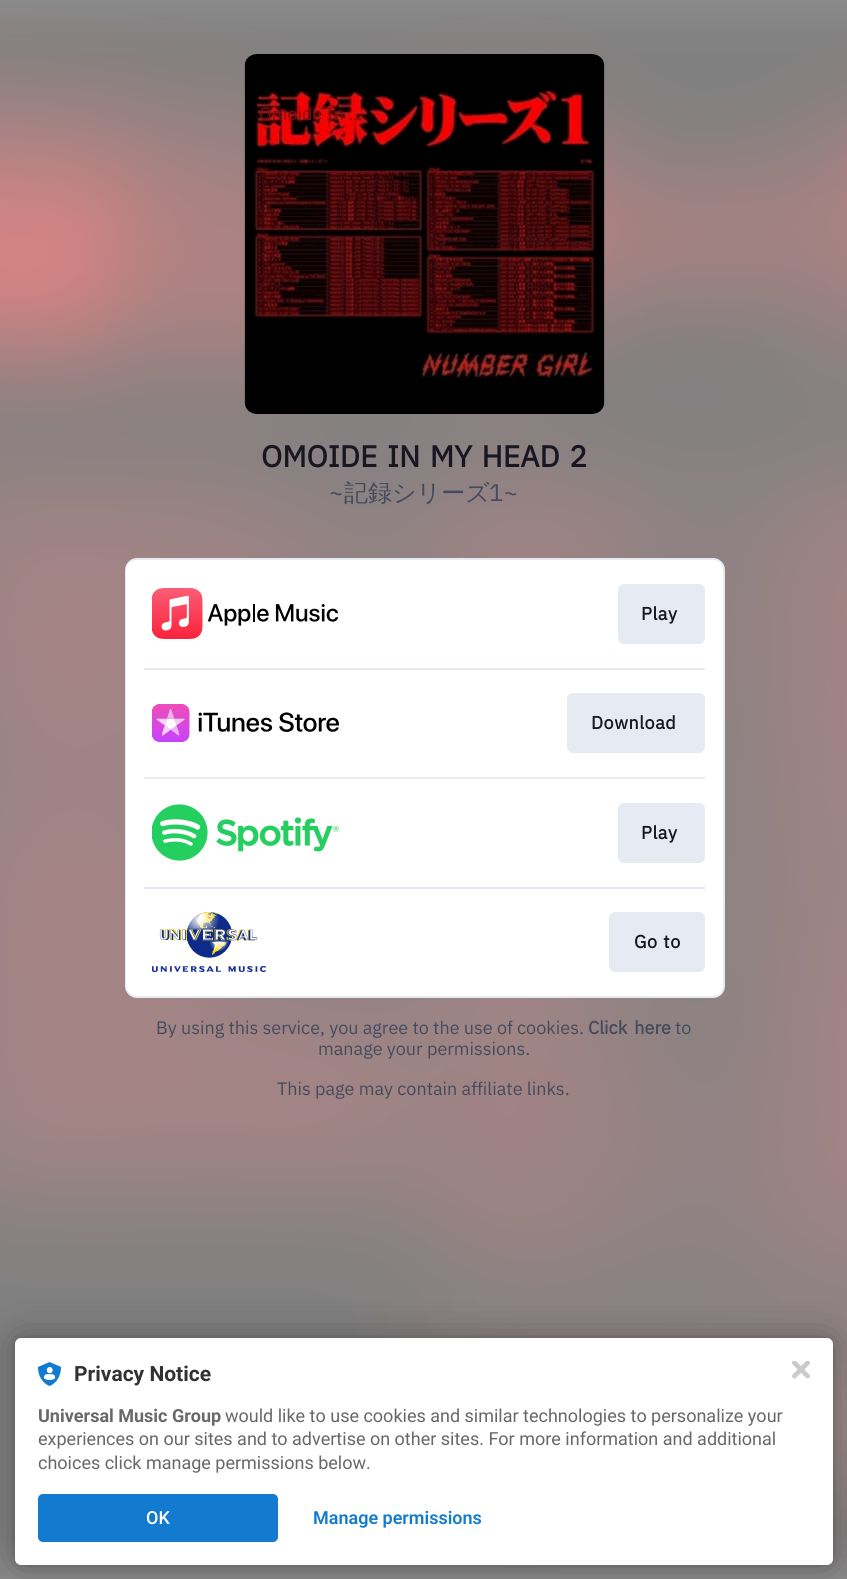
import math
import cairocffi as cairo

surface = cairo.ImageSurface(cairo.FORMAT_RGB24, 847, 1579)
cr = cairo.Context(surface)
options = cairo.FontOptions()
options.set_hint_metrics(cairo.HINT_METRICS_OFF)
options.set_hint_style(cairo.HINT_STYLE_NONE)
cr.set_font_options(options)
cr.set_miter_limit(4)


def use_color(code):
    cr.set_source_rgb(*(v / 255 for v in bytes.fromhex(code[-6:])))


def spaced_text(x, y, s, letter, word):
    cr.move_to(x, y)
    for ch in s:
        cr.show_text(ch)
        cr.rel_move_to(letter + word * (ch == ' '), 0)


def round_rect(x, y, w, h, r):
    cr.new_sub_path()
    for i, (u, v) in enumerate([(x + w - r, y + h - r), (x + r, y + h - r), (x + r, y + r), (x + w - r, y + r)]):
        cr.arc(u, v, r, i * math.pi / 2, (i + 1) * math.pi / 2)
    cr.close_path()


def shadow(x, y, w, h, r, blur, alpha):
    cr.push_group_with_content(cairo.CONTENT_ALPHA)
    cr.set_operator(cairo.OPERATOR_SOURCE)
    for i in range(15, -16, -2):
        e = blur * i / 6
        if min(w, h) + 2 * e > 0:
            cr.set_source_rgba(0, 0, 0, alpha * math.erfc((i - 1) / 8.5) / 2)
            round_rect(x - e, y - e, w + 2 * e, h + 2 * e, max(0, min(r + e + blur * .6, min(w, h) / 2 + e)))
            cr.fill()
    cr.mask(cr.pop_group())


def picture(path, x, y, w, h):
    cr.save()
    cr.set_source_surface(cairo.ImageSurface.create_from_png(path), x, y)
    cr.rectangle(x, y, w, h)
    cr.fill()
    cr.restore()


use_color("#ffffff")
cr.paint()
picture("img1.png", 0, 0, 847, 1579)
picture("img2.png", 244, 54, 361, 360)
cr.save()
cr.rectangle(260, 101, 114, 27)
cr.clip()
cr.select_font_face("IBM Plex Sans")
cr.set_font_size(18)
use_color("#860a0a")
cr.move_to(259, 120)
cr.show_text("Omoide In …")
cr.restore()
cr.select_font_face("IBM Plex Sans", cairo.FONT_SLANT_NORMAL, cairo.FONT_WEIGHT_BOLD)
cr.set_font_size(30)
use_color("#181721")
spaced_text(261, 467, "OMOIDE IN MY HEAD 2", 0, 2.5)
cr.select_font_face("IBM Plex Sans")
cr.set_font_size(24)
use_color("#454b5f")
cr.move_to(329, 501)
cr.show_text("~")
cr.select_font_face("WenQuanYi Zen Hei Medium")
cr.move_to(344, 501)
cr.show_text("記録シリーズ")
cr.select_font_face("IBM Plex Sans")
cr.move_to(489, 501)
cr.show_text("1~")
use_color("#ffffff")
round_rect(126, 559, 598, 438, 11)
cr.fill_preserve()
use_color("#e6eaf2")
cr.stroke()
use_color("#ffffff")
round_rect(126, 560, 597, 436, 11)
cr.fill()
picture("img3.png", 152, 588, 186, 51)
use_color("#e6eaf2")
round_rect(618, 584, 87, 60, 6)
cr.fill()
cr.select_font_face("IBM Plex Sans", cairo.FONT_SLANT_NORMAL, cairo.FONT_WEIGHT_BOLD)
cr.set_font_size(18)
use_color("#181721")
spaced_text(641, 620, "Play", 0.5, 0)
use_color("#e6eaf2")
cr.rectangle(144, 668, 561, 2)
cr.fill()
picture("img4.png", 152, 704, 187, 38)
round_rect(567, 693, 138, 60, 6)
cr.fill()
use_color("#181721")
spaced_text(591, 729, "Download", 0.5, 0)
use_color("#e6eaf2")
cr.rectangle(144, 777, 561, 2)
cr.fill()
picture("img5.png", 152, 804, 187, 57)
round_rect(618, 803, 87, 60, 6)
cr.fill()
use_color("#181721")
spaced_text(641, 839, "Play", 0.5, 0)
use_color("#e6eaf2")
cr.rectangle(144, 887, 561, 2)
cr.fill()
picture("img6.png", 152, 912, 114, 60)
round_rect(609, 912, 96, 60, 6)
cr.fill()
use_color("#181721")
spaced_text(634, 948, "Go to", 0.5, 1)
cr.select_font_face("IBM Plex Sans")
use_color("#454b5f")
cr.move_to(156, 1034)
cr.show_text("By using this service, you agree to the use of cookies.")
cr.select_font_face("IBM Plex Sans", cairo.FONT_SLANT_NORMAL, cairo.FONT_WEIGHT_BOLD)
spaced_text(588, 1034, "Click here", 0, 3)
cr.select_font_face("IBM Plex Sans")
cr.move_to(675, 1034)
cr.show_text("to")
cr.move_to(318, 1055)
cr.show_text("manage your permissions.")
cr.move_to(277, 1095)
cr.show_text("This page may contain affiliate links.")
use_color("#000000")
shadow(15, 1338, 818, 227, 6, 3, 0.12)
shadow(15, 1338, 818, 227, 6, 18, 0.3)
use_color("#ffffff")
round_rect(15, 1338, 818, 227, 6)
cr.fill()
picture("img7.png", 38, 1362, 23, 24)
cr.select_font_face("Roboto", cairo.FONT_SLANT_NORMAL, cairo.FONT_WEIGHT_BOLD)
cr.set_font_size(21)
use_color("#323232")
cr.move_to(74, 1381)
cr.show_text("Privacy Notice")
cr.set_font_size(18)
use_color("#686868")
cr.move_to(38, 1422)
cr.show_text("Universal Music Group")
cr.select_font_face("Roboto")
cr.move_to(225, 1422)
cr.show_text("would like to use cookies and similar technologies to personalize your")
cr.move_to(38, 1445)
cr.show_text("experiences on our sites and to advertise on other sites. For more information and additional")
cr.move_to(38, 1469)
cr.show_text("choices click manage permissions below.")
use_color("#137bcf")
round_rect(38, 1494, 240, 48, 5)
cr.fill()
cr.select_font_face("Roboto Medium")
use_color("#ffffff")
cr.move_to(146, 1524)
cr.show_text("OK")
cr.select_font_face("Roboto SemiBold")
use_color("#137bcf")
cr.move_to(313, 1524)
cr.show_text("Manage permissions")
picture("img8.png", 792, 1361, 18, 18)
surface.write_to_png("result.png")
